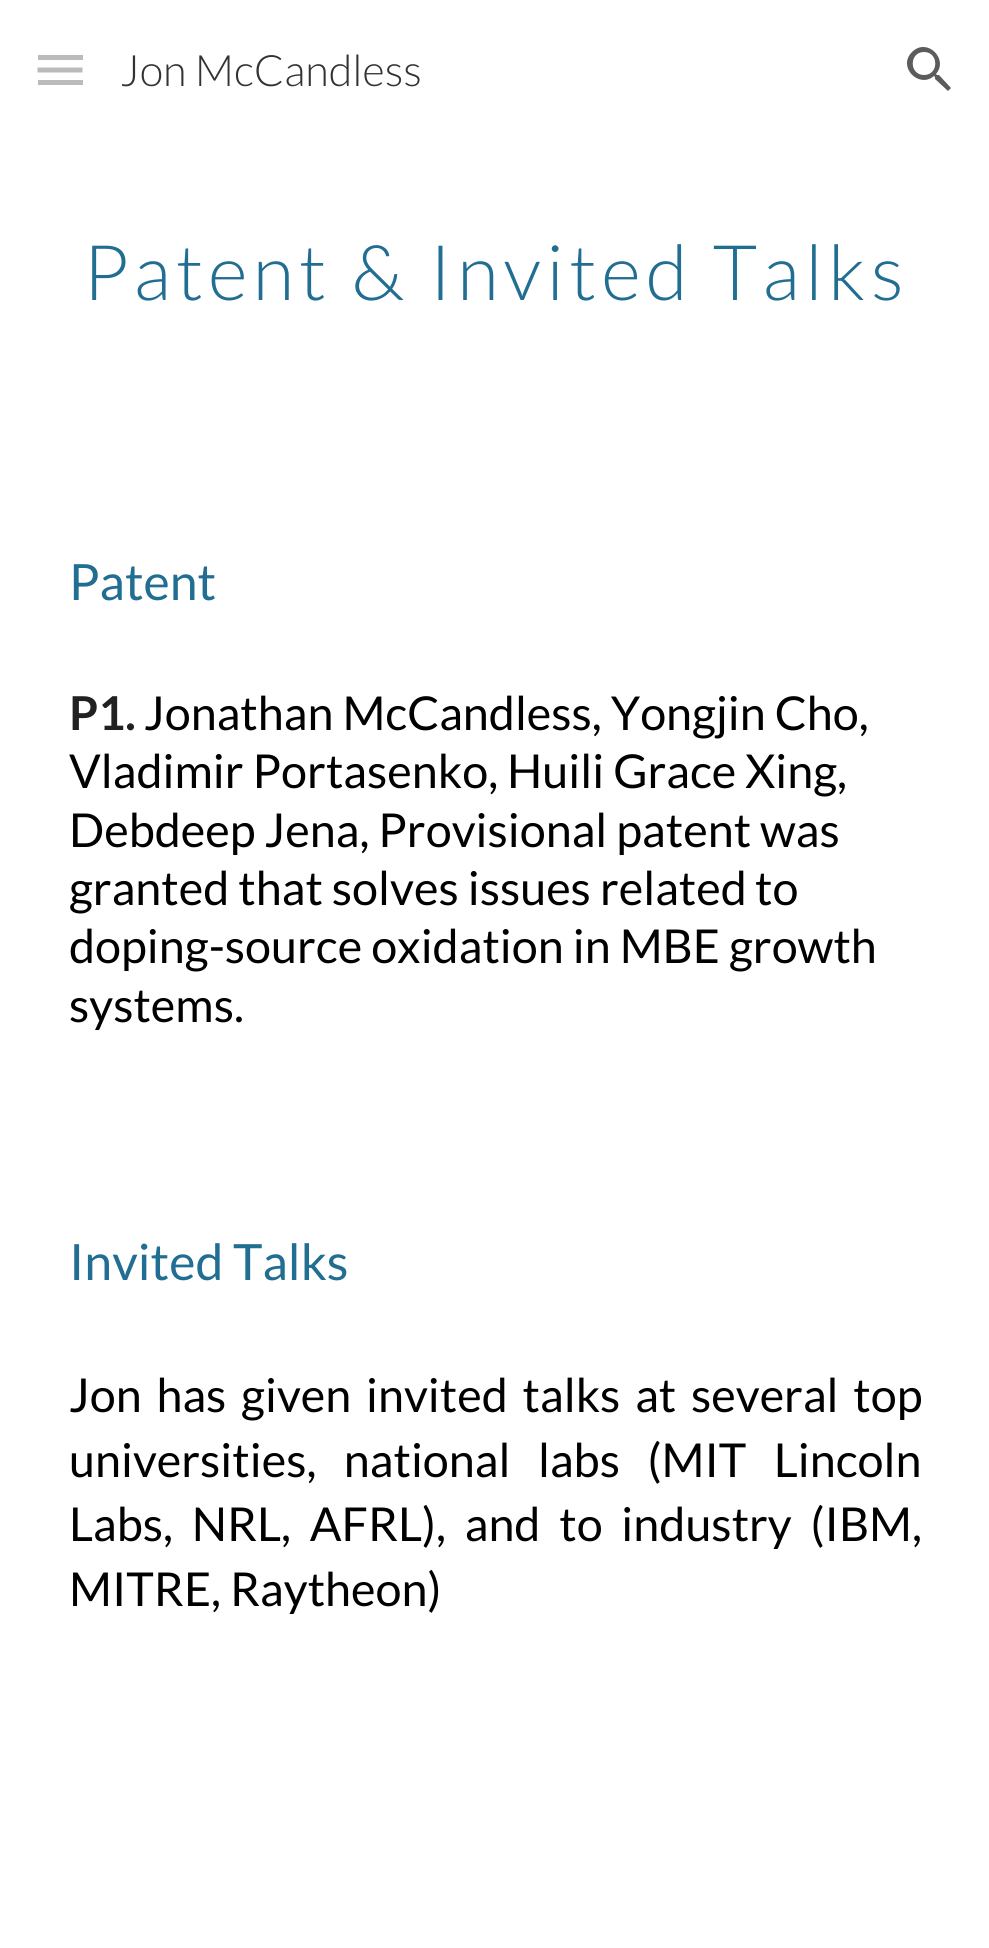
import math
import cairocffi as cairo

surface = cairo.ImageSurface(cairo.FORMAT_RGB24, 989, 1948)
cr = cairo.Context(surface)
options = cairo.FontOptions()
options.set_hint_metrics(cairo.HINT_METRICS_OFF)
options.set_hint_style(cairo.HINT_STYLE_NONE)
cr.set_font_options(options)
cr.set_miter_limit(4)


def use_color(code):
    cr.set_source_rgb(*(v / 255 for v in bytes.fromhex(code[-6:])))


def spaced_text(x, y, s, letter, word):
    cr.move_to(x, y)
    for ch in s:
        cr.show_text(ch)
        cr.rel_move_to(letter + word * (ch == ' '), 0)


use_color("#ffffff")
cr.paint()
use_color("#b2b2b2")
cr.rectangle(38, 55, 45, 5)
cr.fill()
cr.new_path()
cr.move_to(37.5, 70)
cr.line_to(82.5, 70)
cr.set_line_width(5)
cr.stroke()
cr.rectangle(38, 80, 45, 5)
cr.fill()
cr.set_source_rgba(1, 1, 1, 0.12)
cr.rectangle(37, 55, 46, 30)
cr.fill()
cr.select_font_face("Lato Light")
cr.set_font_size(43.25)
use_color("#333333")
cr.move_to(120, 86)
cr.show_text("Jon McCandless")
use_color("#5c5c5c")
cr.new_path()
cr.move_to(939, 75)
cr.line_to(937, 75)
cr.line_to(936, 74)
cr.curve_to(949, 59, 927, 37, 912, 52)
cr.curve_to(897, 67, 919, 89, 934, 76)
cr.line_to(935, 77)
cr.line_to(935, 79)
cr.line_to(948, 91)
cr.line_to(951, 88)
cr.close_path()
cr.move_to(924, 75)
cr.curve_to(909, 75, 909, 52, 924, 52)
cr.curve_to(939, 52, 939, 75, 924, 75)
cr.close_path()
cr.fill()
cr.set_font_size(76.75)
use_color("#226e93")
spaced_text(83, 300, "Patent & Invited Talks", 5, 0)
cr.select_font_face("Lato")
cr.set_font_size(50)
cr.move_to(69, 600)
cr.show_text("Patent")
cr.select_font_face("Lato", cairo.FONT_SLANT_NORMAL, cairo.FONT_WEIGHT_BOLD)
cr.set_font_size(46.7)
use_color("#212121")
cr.move_to(69, 730)
cr.show_text("P1.")
cr.select_font_face("Lato")
use_color("#000000")
cr.move_to(144, 730)
cr.show_text("Jonathan McCandless, Yongjin Cho,")
cr.move_to(69, 788)
cr.show_text("Vladimir Portasenko, Huili Grace Xing,")
cr.move_to(69, 847)
cr.show_text("Debdeep Jena, Provisional patent was")
cr.move_to(69, 905)
cr.show_text("granted that solves issues related")
cr.move_to(755, 905)
cr.show_text("to")
cr.move_to(69, 963)
cr.show_text("doping-source oxidation in MBE growth")
cr.move_to(69, 1022)
cr.show_text("systems.")
cr.set_font_size(50)
use_color("#226e93")
cr.move_to(69, 1280)
cr.show_text("Invited Talks")
cr.set_font_size(46.7)
use_color("#000000")
spaced_text(69, 1412, "Jon has given invited talks at several top", 0, 5.75)
spaced_text(69, 1477, "universities, national labs (MIT Lincoln", 0, 18.5)
spaced_text(69, 1541, "Labs, NRL, AFRL), and to industry (IBM,", 0, 9.75)
cr.move_to(69, 1606)
cr.show_text("MITRE, Raytheon)")
surface.write_to_png("result.png")
